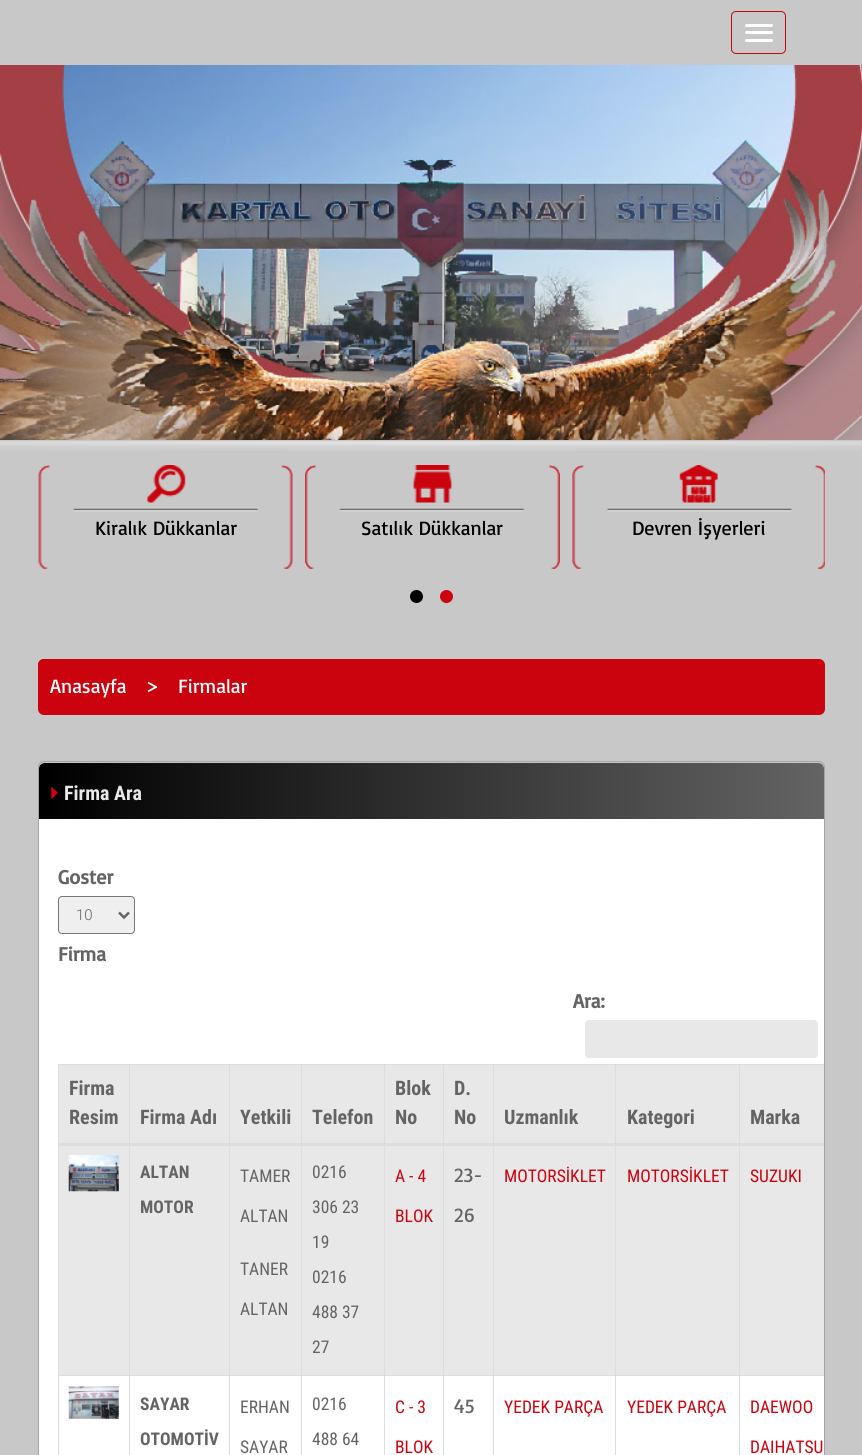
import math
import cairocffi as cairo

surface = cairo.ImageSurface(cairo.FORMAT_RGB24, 862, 1455)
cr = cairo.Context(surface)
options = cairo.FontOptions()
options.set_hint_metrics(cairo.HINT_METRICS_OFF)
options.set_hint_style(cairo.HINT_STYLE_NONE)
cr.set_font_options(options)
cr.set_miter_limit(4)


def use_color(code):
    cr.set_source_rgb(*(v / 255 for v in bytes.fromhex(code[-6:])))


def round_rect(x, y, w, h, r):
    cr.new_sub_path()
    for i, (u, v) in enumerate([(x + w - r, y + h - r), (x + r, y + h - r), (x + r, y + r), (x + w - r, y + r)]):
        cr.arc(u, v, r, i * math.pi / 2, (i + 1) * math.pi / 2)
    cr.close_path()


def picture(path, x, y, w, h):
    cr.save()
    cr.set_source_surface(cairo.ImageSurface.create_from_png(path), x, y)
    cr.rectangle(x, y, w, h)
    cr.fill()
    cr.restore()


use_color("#c8c8c8")
cr.paint()
round_rect(731.5, 11.5, 54, 42, 4.5)
use_color("#cb030e")
cr.set_line_width(1)
cr.stroke()
use_color("#ffffff")
round_rect(745, 24, 28, 3, 1.5)
cr.fill()
round_rect(745, 31, 28, 3, 1.5)
cr.fill()
round_rect(745, 39, 28, 3, 1.5)
cr.fill()
picture("img1.png", 0, 65, 862, 375)
picture("img2.png", 0, 441, 862, 10)
picture("img3.png", 38, 465, 255, 104)
picture("img4.png", 147, 465, 39, 38)
picture("img5.png", 73, 508, 186, 4)
cr.select_font_face("Basic")
cr.set_font_size(20)
use_color("#000000")
cr.move_to(95, 535)
cr.show_text("Kiralık Dükkanlar")
picture("img6.png", 305, 465, 255, 104)
picture("img7.png", 413, 465, 39, 38)
picture("img8.png", 339, 508, 186, 4)
cr.move_to(361, 535)
cr.show_text("Satılık Dükkanlar")
picture("img9.png", 572, 465, 253, 104)
picture("img10.png", 679, 465, 39, 38)
picture("img11.png", 606, 508, 186, 4)
cr.move_to(632, 535)
cr.show_text("Devren İşyerleri")
cr.new_path()
cr.arc(416.5, 596.5, 6.5, 0, 2 * math.pi)
cr.fill()
use_color("#cb030e")
cr.arc(446.5, 596.5, 6.5, 0, 2 * math.pi)
cr.fill()
round_rect(38, 659, 787, 56, 6)
cr.fill()
round_rect(38, 659, 101, 52, 6)
cr.fill()
use_color("#ffffff")
cr.move_to(50, 693)
cr.show_text("Anasayfa")
cr.move_to(145, 693)
cr.show_text(">")
cr.move_to(178, 693)
cr.show_text("Firmalar")
round_rect(38.5, 761.5, 786, 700, 5.5)
use_color("#a5a5a5")
cr.stroke()
gradient = cairo.LinearGradient(39, 791, 824, 791)
gradient.add_color_stop_rgba(0.01, 0, 0, 0, 1)
gradient.add_color_stop_rgba(1, 0.392, 0.392, 0.392, 1)
cr.set_source(gradient)
cr.new_path()
cr.move_to(45, 763)
cr.line_to(818, 763)
cr.curve_to(821.5, 763, 824, 765.5, 824, 769)
cr.line_to(824, 819)
cr.line_to(39, 819)
cr.line_to(39, 769)
cr.curve_to(39, 765.5, 41.5, 763, 45, 763)
cr.close_path()
cr.fill()
picture("img12.png", 51, 787, 7, 12)
cr.select_font_face("Roboto Condensed", cairo.FONT_SLANT_NORMAL, cairo.FONT_WEIGHT_BOLD)
use_color("#e8e8e8")
cr.move_to(64, 800)
cr.show_text("Firma Ara")
use_color("#ffffff")
cr.rectangle(39, 819, 785, 636)
cr.fill()
cr.select_font_face("Basic", cairo.FONT_SLANT_NORMAL, cairo.FONT_WEIGHT_BOLD)
use_color("#646464")
cr.move_to(58, 884)
cr.show_text("Goster")
use_color("#efefef")
round_rect(58.5, 896.5, 76, 37, 3.5)
cr.fill_preserve()
use_color("#767676")
cr.stroke()
cr.new_path()
cr.move_to(119, 912.5)
cr.line_to(124, 917.5)
cr.line_to(129, 912.5)
use_color("#646464")
cr.set_line_width(2.5)
cr.stroke()
cr.select_font_face("Roboto Light")
cr.set_font_size(15)
cr.move_to(76, 920)
cr.show_text("10")
cr.select_font_face("Basic", cairo.FONT_SLANT_NORMAL, cairo.FONT_WEIGHT_BOLD)
cr.set_font_size(20)
cr.move_to(58, 961)
cr.show_text("Firma")
cr.move_to(573, 1008)
cr.show_text("Ara:")
use_color("#e8e8e8")
round_rect(585, 1020, 233, 38, 4)
cr.fill()
use_color("#dddddd")
cr.rectangle(58, 1064, 766, 1)
cr.fill()
cr.rectangle(58, 1064, 1, 391)
cr.fill()
use_color("#e8e8e8")
cr.rectangle(59, 1065, 765, 78)
cr.fill()
cr.select_font_face("Roboto Condensed", cairo.FONT_SLANT_NORMAL, cairo.FONT_WEIGHT_BOLD)
use_color("#646464")
cr.move_to(69, 1095)
cr.show_text("Firma")
cr.move_to(69, 1124)
cr.show_text("Resim")
cr.move_to(140, 1124)
cr.show_text("Firma Adı")
cr.move_to(240, 1124)
cr.show_text("Yetkili")
cr.move_to(312, 1124)
cr.show_text("Telefon")
cr.move_to(395, 1095)
cr.show_text("Blok")
cr.move_to(395, 1124)
cr.show_text("No")
cr.move_to(454, 1095)
cr.show_text("D.")
cr.move_to(454, 1124)
cr.show_text("No")
cr.move_to(504, 1124)
cr.show_text("Uzmanlık")
cr.move_to(627, 1124)
cr.show_text("Kategori")
use_color("#e8e8e8")
cr.rectangle(59, 1146, 765, 229)
cr.fill()
use_color("#dddddd")
cr.rectangle(739, 1375, 85, 1)
cr.fill()
cr.rectangle(739, 1375, 1, 80)
cr.fill()
cr.rectangle(615, 1375, 125, 1)
cr.fill()
cr.rectangle(615, 1375, 1, 80)
cr.fill()
cr.rectangle(493, 1375, 123, 1)
cr.fill()
cr.rectangle(493, 1375, 1, 80)
cr.fill()
cr.rectangle(443, 1375, 51, 1)
cr.fill()
cr.rectangle(443, 1375, 1, 80)
cr.fill()
cr.rectangle(384, 1375, 60, 1)
cr.fill()
cr.rectangle(384, 1375, 1, 80)
cr.fill()
cr.rectangle(301, 1375, 84, 1)
cr.fill()
cr.rectangle(301, 1375, 1, 80)
cr.fill()
cr.rectangle(229, 1375, 74, 1)
cr.fill()
cr.rectangle(229, 1375, 1, 80)
cr.fill()
cr.rectangle(129, 1375, 101, 1)
cr.fill()
cr.rectangle(129, 1375, 1, 80)
cr.fill()
cr.rectangle(58, 1375, 72, 1)
cr.fill()
cr.rectangle(129, 1064, 1, 312)
cr.fill()
cr.rectangle(229, 1064, 1, 312)
cr.fill()
cr.rectangle(301, 1064, 1, 312)
cr.fill()
cr.rectangle(384, 1064, 1, 312)
cr.fill()
cr.rectangle(443, 1064, 1, 312)
cr.fill()
cr.rectangle(493, 1064, 1, 312)
cr.fill()
cr.rectangle(615, 1064, 1, 312)
cr.fill()
cr.rectangle(739, 1064, 1, 312)
cr.fill()
cr.rectangle(58, 1143, 766, 3)
cr.fill()
use_color("#646464")
cr.move_to(750, 1124)
cr.show_text("Marka")
picture("img13.png", 68, 1155, 51, 37)
cr.set_font_size(17.5)
cr.move_to(140, 1178)
cr.show_text("ALTAN")
cr.move_to(140, 1213)
cr.show_text("MOTOR")
cr.select_font_face("Roboto Condensed")
cr.move_to(240, 1182)
cr.show_text("TAMER")
cr.move_to(240, 1222)
cr.show_text("ALTAN")
cr.move_to(240, 1275)
cr.show_text("TANER")
cr.move_to(240, 1315)
cr.show_text("ALTAN")
cr.move_to(312, 1178)
cr.show_text("0216")
cr.move_to(312, 1213)
cr.show_text("306 23")
cr.move_to(312, 1248)
cr.show_text("19")
cr.move_to(312, 1283)
cr.show_text("0216")
cr.move_to(312, 1318)
cr.show_text("488 37")
cr.move_to(312, 1353)
cr.show_text("27")
use_color("#cb030e")
cr.move_to(395, 1182)
cr.show_text("A - 4")
cr.move_to(395, 1222)
cr.show_text("BLOK")
cr.select_font_face("Basic")
cr.set_font_size(20)
use_color("#646464")
cr.move_to(454, 1182)
cr.show_text("23-")
cr.move_to(454, 1222)
cr.show_text("26")
cr.select_font_face("Roboto Condensed")
cr.set_font_size(17.5)
use_color("#cb030e")
cr.move_to(504, 1182)
cr.show_text("MOTORSİKLET")
cr.move_to(627, 1182)
cr.show_text("MOTORSİKLET")
cr.move_to(750, 1182)
cr.show_text("SUZUKI")
picture("img14.png", 68, 1386, 51, 33)
cr.select_font_face("Roboto Condensed", cairo.FONT_SLANT_NORMAL, cairo.FONT_WEIGHT_BOLD)
use_color("#646464")
cr.move_to(140, 1410)
cr.show_text("SAYAR")
cr.move_to(140, 1445)
cr.show_text("OTOMOTİV")
cr.select_font_face("Roboto Condensed")
cr.move_to(240, 1413)
cr.show_text("ERHAN")
cr.move_to(240, 1453)
cr.show_text("SAYAR")
cr.move_to(312, 1410)
cr.show_text("0216")
cr.move_to(312, 1445)
cr.show_text("488 64")
use_color("#cb030e")
cr.move_to(395, 1413)
cr.show_text("C - 3")
cr.move_to(395, 1453)
cr.show_text("BLOK")
cr.select_font_face("Basic")
cr.set_font_size(20)
use_color("#646464")
cr.move_to(454, 1413)
cr.show_text("45")
cr.select_font_face("Roboto Condensed")
cr.set_font_size(17.5)
use_color("#cb030e")
cr.move_to(504, 1413)
cr.show_text("YEDEK PARÇA")
cr.move_to(627, 1413)
cr.show_text("YEDEK PARÇA")
cr.move_to(750, 1413)
cr.show_text("DAEWOO")
cr.move_to(750, 1453)
cr.show_text("DAIHATSU")
surface.write_to_png("result.png")
